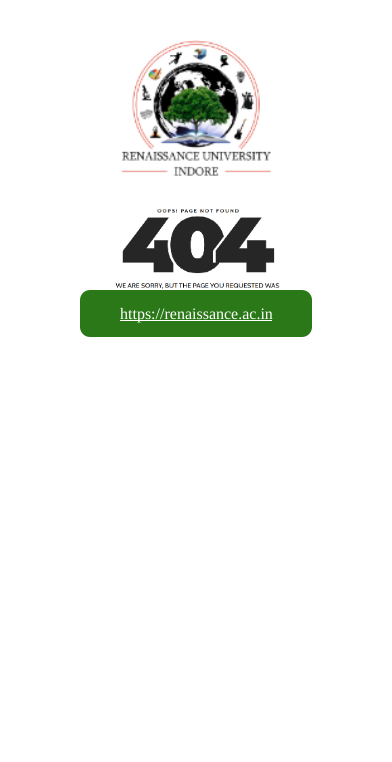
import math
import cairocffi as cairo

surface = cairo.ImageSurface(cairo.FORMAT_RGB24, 392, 762)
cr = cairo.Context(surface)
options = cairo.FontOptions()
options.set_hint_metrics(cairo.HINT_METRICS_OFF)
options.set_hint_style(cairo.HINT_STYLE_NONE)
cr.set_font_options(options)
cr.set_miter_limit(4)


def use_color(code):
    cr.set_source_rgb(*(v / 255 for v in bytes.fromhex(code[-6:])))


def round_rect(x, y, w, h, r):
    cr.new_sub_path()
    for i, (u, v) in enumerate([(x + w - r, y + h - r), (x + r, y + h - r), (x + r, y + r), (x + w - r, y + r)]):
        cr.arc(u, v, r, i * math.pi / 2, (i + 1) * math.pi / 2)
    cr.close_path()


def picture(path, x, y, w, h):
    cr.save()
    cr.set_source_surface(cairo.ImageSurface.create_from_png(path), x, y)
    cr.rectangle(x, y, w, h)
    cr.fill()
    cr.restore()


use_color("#ffffff")
cr.paint()
picture("img1.png", 121, 40, 150, 136)
picture("img2.png", 115, 209, 165, 81)
use_color("#2b7818")
round_rect(80, 290, 232, 47, 10)
cr.fill()
use_color("#ffffff")
cr.rectangle(120, 320, 152, 1)
cr.fill()
cr.select_font_face("Liberation Serif")
cr.set_font_size(16)
cr.move_to(120, 319)
cr.show_text("https://renaissance.ac.in")
surface.write_to_png("result.png")
